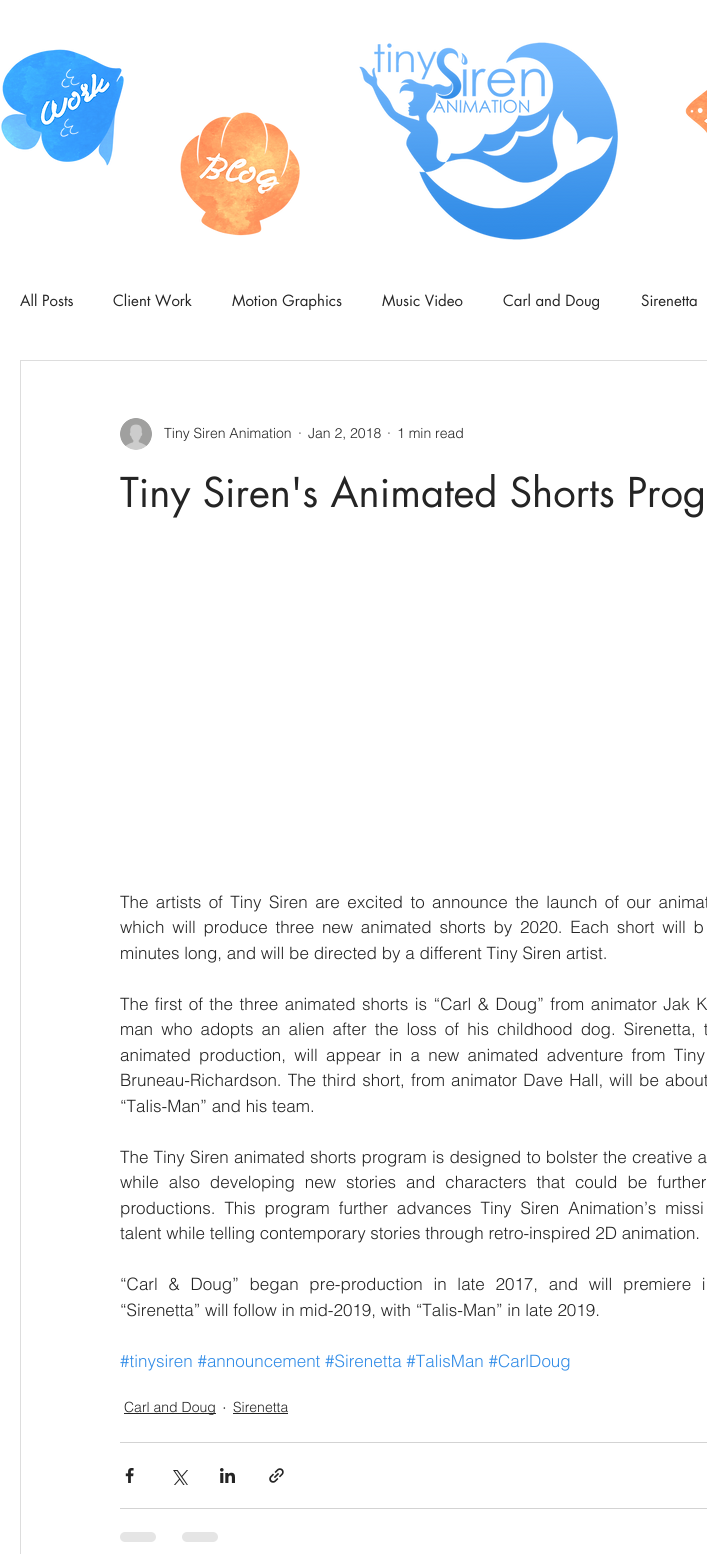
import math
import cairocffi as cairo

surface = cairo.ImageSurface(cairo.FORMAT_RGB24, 707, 1554)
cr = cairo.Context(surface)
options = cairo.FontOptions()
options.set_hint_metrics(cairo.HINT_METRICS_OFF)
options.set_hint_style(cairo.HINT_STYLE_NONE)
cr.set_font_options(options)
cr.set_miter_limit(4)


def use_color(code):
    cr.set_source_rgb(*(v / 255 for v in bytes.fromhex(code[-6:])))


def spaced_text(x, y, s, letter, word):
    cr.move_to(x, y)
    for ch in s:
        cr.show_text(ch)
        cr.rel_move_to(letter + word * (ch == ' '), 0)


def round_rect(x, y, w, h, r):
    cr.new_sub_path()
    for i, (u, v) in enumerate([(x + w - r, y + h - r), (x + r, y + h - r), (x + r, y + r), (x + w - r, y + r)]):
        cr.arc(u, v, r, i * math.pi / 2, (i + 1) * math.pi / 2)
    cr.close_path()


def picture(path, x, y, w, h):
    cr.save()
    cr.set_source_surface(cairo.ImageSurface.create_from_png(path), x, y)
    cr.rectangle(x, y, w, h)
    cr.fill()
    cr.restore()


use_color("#ffffff")
cr.paint()
picture("img1.png", 1, 49, 123, 117)
picture("img2.png", 180, 112, 120, 124)
picture("img3.png", 359, 42, 259, 198)
picture("img4.png", 685, 90, 22, 43)
cr.select_font_face("futura")
cr.set_font_size(15)
use_color("#242424")
cr.move_to(20, 306)
cr.show_text("All Posts")
cr.move_to(113, 306)
cr.show_text("Client Work")
cr.move_to(232, 306)
cr.show_text("Motion Graphics")
cr.move_to(382, 306)
cr.show_text("Music Video")
cr.move_to(503, 306)
cr.show_text("Carl and Doug")
cr.move_to(641, 306)
cr.show_text("Sirenetta")
cr.rectangle(20.5, 360.5, 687, 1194)
use_color("#dddddd")
cr.set_line_width(1)
cr.stroke()
picture("img5.png", 120, 418, 32, 32)
cr.select_font_face("helvetica Light")
cr.set_font_size(14)
use_color("#242424")
cr.move_to(164, 438)
cr.show_text("Tiny Siren Animation")
cr.move_to(298, 438)
cr.show_text("·")
cr.move_to(308, 438)
cr.show_text("Jan 2, 2018")
cr.move_to(387, 438)
cr.show_text("·")
cr.move_to(397, 438)
cr.show_text("1 min read")
cr.select_font_face("futura")
cr.set_font_size(40)
cr.move_to(120, 507)
cr.show_text("Tiny Siren's Animated Shorts Prog")
cr.select_font_face("helvetica Light")
cr.set_font_size(17)
spaced_text(120, 908, "The artists of Tiny Siren are excited to announce the launch of our animat", 0, 2.75)
spaced_text(120, 933, "which will produce three new animated shorts by 2020. Each short will b", 0, 3)
cr.move_to(120, 959)
cr.show_text("minutes long, and will be directed by a different Tiny Siren artist.")
spaced_text(120, 1010, "The first of the three animated shorts is “Carl & Doug” from animator Jak K", 0, 1.75)
spaced_text(120, 1035, "man who adopts an alien after the loss of his childhood dog. Sirenetta, t", 0, 3.4)
spaced_text(120, 1061, "animated production, will appear in a new animated adventure from Tiny", 0, 3.5)
spaced_text(120, 1086, "Bruneau-Richardson. The third short, from animator Dave Hall, will be about", 0, 1.4)
cr.move_to(120, 1112)
cr.show_text("“Talis-Man” and his team.")
spaced_text(120, 1163, "The Tiny Siren animated shorts program is designed to bolster the creative a", 0, 0.5)
spaced_text(120, 1188, "while also developing new stories and characters that could be further", 0, 5.25)
spaced_text(120, 1214, "productions. This program further advances Tiny Siren Animation’s missi", 0, 4.25)
cr.move_to(120, 1239)
cr.show_text("talent while telling contemporary stories through retro-inspired 2D animation.")
spaced_text(120, 1290, "“Carl & Doug” began pre-production in late 2017, and will premiere i", 0, 6)
cr.move_to(120, 1316)
cr.show_text("“Sirenetta” will follow in mid-2019, with “Talis-Man” in late 2019.")
use_color("#318ce7")
cr.move_to(120, 1367)
cr.show_text("#tinysiren #announcement #Sirenetta #TalisMan #CarlDoug")
use_color("#242424")
cr.rectangle(124, 1413, 92, 1)
cr.fill()
cr.set_font_size(14)
cr.move_to(124, 1412)
cr.show_text("Carl and Doug")
cr.set_font_size(17)
cr.move_to(222, 1414)
cr.show_text("·")
cr.set_font_size(14)
cr.move_to(233, 1412)
cr.show_text("Sirenetta")
cr.rectangle(233, 1413, 55, 1)
cr.fill()
use_color("#d3d3d3")
cr.rectangle(120, 1442, 587, 1)
cr.fill()
picture("img6.png", 125, 1468, 9, 15)
picture("img7.png", 173, 1470, 15, 15)
picture("img8.png", 220, 1468, 15, 15)
picture("img9.png", 269, 1468, 15, 15)
cr.rectangle(120, 1508, 587, 1)
cr.fill()
use_color("#e5e5e5")
round_rect(120, 1532, 36, 10, 5)
cr.fill()
round_rect(182, 1532, 36, 10, 5)
cr.fill()
surface.write_to_png("result.png")
